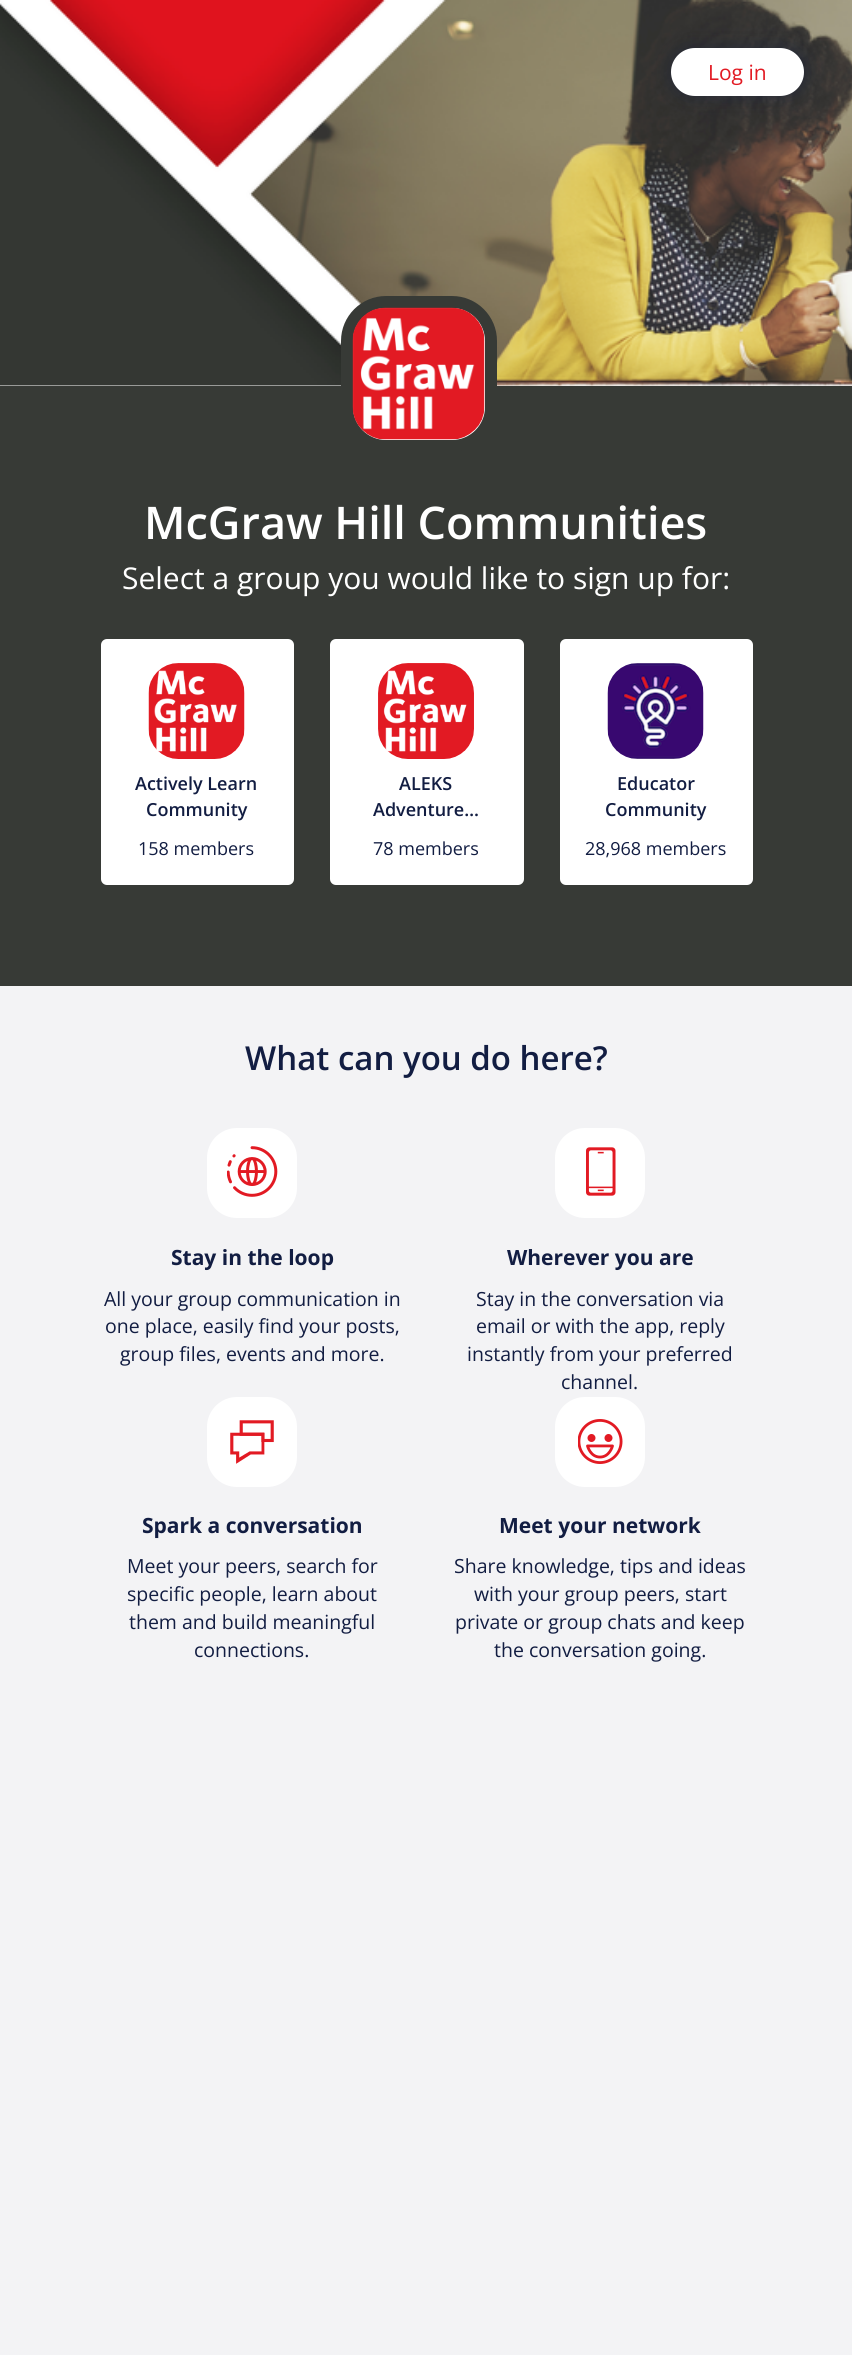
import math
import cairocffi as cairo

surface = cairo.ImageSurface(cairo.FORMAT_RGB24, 852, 2355)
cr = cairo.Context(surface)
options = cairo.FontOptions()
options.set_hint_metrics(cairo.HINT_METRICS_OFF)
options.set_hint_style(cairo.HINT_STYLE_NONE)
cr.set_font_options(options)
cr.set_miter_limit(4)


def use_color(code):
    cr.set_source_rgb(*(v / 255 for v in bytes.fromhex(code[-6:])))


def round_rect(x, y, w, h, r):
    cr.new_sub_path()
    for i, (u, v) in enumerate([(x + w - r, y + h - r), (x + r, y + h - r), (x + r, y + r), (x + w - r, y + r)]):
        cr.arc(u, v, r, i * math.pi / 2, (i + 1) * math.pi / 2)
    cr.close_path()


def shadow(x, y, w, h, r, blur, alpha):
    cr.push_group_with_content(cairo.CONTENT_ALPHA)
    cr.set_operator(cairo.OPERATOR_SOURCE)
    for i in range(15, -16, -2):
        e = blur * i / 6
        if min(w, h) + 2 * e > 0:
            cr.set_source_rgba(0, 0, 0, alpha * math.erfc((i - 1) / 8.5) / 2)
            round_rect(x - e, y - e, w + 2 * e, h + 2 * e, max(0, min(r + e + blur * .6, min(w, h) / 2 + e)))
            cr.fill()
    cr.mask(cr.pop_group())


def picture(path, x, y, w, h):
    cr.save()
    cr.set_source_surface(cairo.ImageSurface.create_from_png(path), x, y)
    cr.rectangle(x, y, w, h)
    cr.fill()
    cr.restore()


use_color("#f3f3f5")
cr.paint()
use_color("#ffffff")
cr.rectangle(0, 385, 852, 1)
cr.fill()
picture("img1.png", 0, 0, 852, 386)
use_color("#373a36")
cr.rectangle(0, 386, 852, 600)
cr.fill()
use_color("#ffffff")
round_rect(347, 302, 144, 144, 39)
cr.fill_preserve()
use_color("#373a36")
cr.set_line_width(12)
cr.stroke()
picture("img2.png", 352, 307, 133, 133)
use_color("#0f1c44")
shadow(671, 48, 133, 48, 24, 9, 0.4)
use_color("#ffffff")
round_rect(672, 49, 131, 46, 23)
cr.fill_preserve()
cr.set_line_width(2)
cr.stroke()
cr.select_font_face("Open Sans")
cr.set_font_size(21)
use_color("#e21a23")
cr.move_to(708, 80)
cr.show_text("Log in")
cr.select_font_face("Open Sans SemiBold")
cr.set_font_size(45)
use_color("#ffffff")
cr.move_to(144, 539)
cr.show_text("McGraw Hill Communities")
cr.select_font_face("Open Sans")
cr.set_font_size(30)
cr.move_to(122, 589)
cr.show_text("Select a group you would like to sign up for:")
round_rect(101, 639, 193, 246, 6)
cr.fill()
picture("img3.png", 148, 663, 97, 96)
cr.select_font_face("Open Sans SemiBold")
cr.set_font_size(18)
use_color("#121d42")
cr.move_to(135, 790)
cr.show_text("Actively Learn")
cr.move_to(146, 816)
cr.show_text("Community")
cr.select_font_face("Open Sans")
cr.move_to(138, 855)
cr.show_text("158 members")
use_color("#ffffff")
round_rect(330, 639, 194, 246, 6)
cr.fill()
picture("img4.png", 378, 663, 96, 96)
cr.select_font_face("Open Sans SemiBold")
use_color("#121d42")
cr.move_to(399, 790)
cr.show_text("ALEKS")
cr.move_to(373, 816)
cr.show_text("Adventure…")
cr.select_font_face("Open Sans")
cr.move_to(373, 855)
cr.show_text("78 members")
use_color("#ffffff")
round_rect(560, 639, 193, 246, 6)
cr.fill()
picture("img5.png", 607, 663, 97, 96)
cr.select_font_face("Open Sans SemiBold")
use_color("#121d42")
cr.move_to(617, 790)
cr.show_text("Educator")
cr.move_to(605, 816)
cr.show_text("Community")
cr.select_font_face("Open Sans")
cr.move_to(585, 855)
cr.show_text("28,968 members")
cr.select_font_face("Open Sans SemiBold")
cr.set_font_size(33)
cr.move_to(245, 1070)
cr.show_text("What can you do here?")
use_color("#ffffff")
round_rect(207, 1128, 90, 90, 30)
cr.fill()
picture("img6.png", 227, 1146, 51, 51)
cr.select_font_face("Open Sans", cairo.FONT_SLANT_NORMAL, cairo.FONT_WEIGHT_BOLD)
cr.set_font_size(21)
use_color("#121d42")
cr.move_to(171, 1265)
cr.show_text("Stay in the loop")
cr.select_font_face("Open Sans")
cr.set_font_size(19.5)
cr.move_to(104, 1306)
cr.show_text("All your group communication in")
cr.move_to(105, 1333)
cr.show_text("one place, easily find your posts,")
cr.move_to(120, 1361)
cr.show_text("group files, events and more.")
use_color("#ffffff")
round_rect(555, 1128, 90, 90, 30)
cr.fill()
picture("img7.png", 586, 1147, 30, 49)
cr.select_font_face("Open Sans", cairo.FONT_SLANT_NORMAL, cairo.FONT_WEIGHT_BOLD)
cr.set_font_size(21)
use_color("#121d42")
cr.move_to(507, 1265)
cr.show_text("Wherever you are")
cr.select_font_face("Open Sans")
cr.set_font_size(19.5)
cr.move_to(476, 1306)
cr.show_text("Stay in the conversation via")
cr.move_to(476, 1333)
cr.show_text("email or with the app, reply")
cr.move_to(467, 1361)
cr.show_text("instantly from your preferred")
cr.move_to(561, 1389)
cr.show_text("channel.")
use_color("#ffffff")
round_rect(207, 1397, 90, 90, 30)
cr.fill()
picture("img8.png", 230, 1420, 44, 44)
cr.select_font_face("Open Sans", cairo.FONT_SLANT_NORMAL, cairo.FONT_WEIGHT_BOLD)
cr.set_font_size(21)
use_color("#121d42")
cr.move_to(142, 1533)
cr.show_text("Spark a conversation")
cr.select_font_face("Open Sans")
cr.set_font_size(19.5)
cr.move_to(127, 1573)
cr.show_text("Meet your peers, search for")
cr.move_to(127, 1601)
cr.show_text("specific people, learn about")
cr.move_to(129, 1629)
cr.show_text("them and build meaningful")
cr.move_to(194, 1657)
cr.show_text("connections.")
use_color("#ffffff")
round_rect(555, 1397, 90, 90, 30)
cr.fill()
picture("img9.png", 578, 1419, 45, 45)
cr.select_font_face("Open Sans", cairo.FONT_SLANT_NORMAL, cairo.FONT_WEIGHT_BOLD)
cr.set_font_size(21)
use_color("#121d42")
cr.move_to(499, 1533)
cr.show_text("Meet your network")
cr.select_font_face("Open Sans")
cr.set_font_size(19.5)
cr.move_to(454, 1573)
cr.show_text("Share knowledge, tips and ideas")
cr.move_to(474, 1601)
cr.show_text("with your group peers, start")
cr.move_to(455, 1629)
cr.show_text("private or group chats and keep")
cr.move_to(494, 1657)
cr.show_text("the conversation going.")
surface.write_to_png("result.png")
